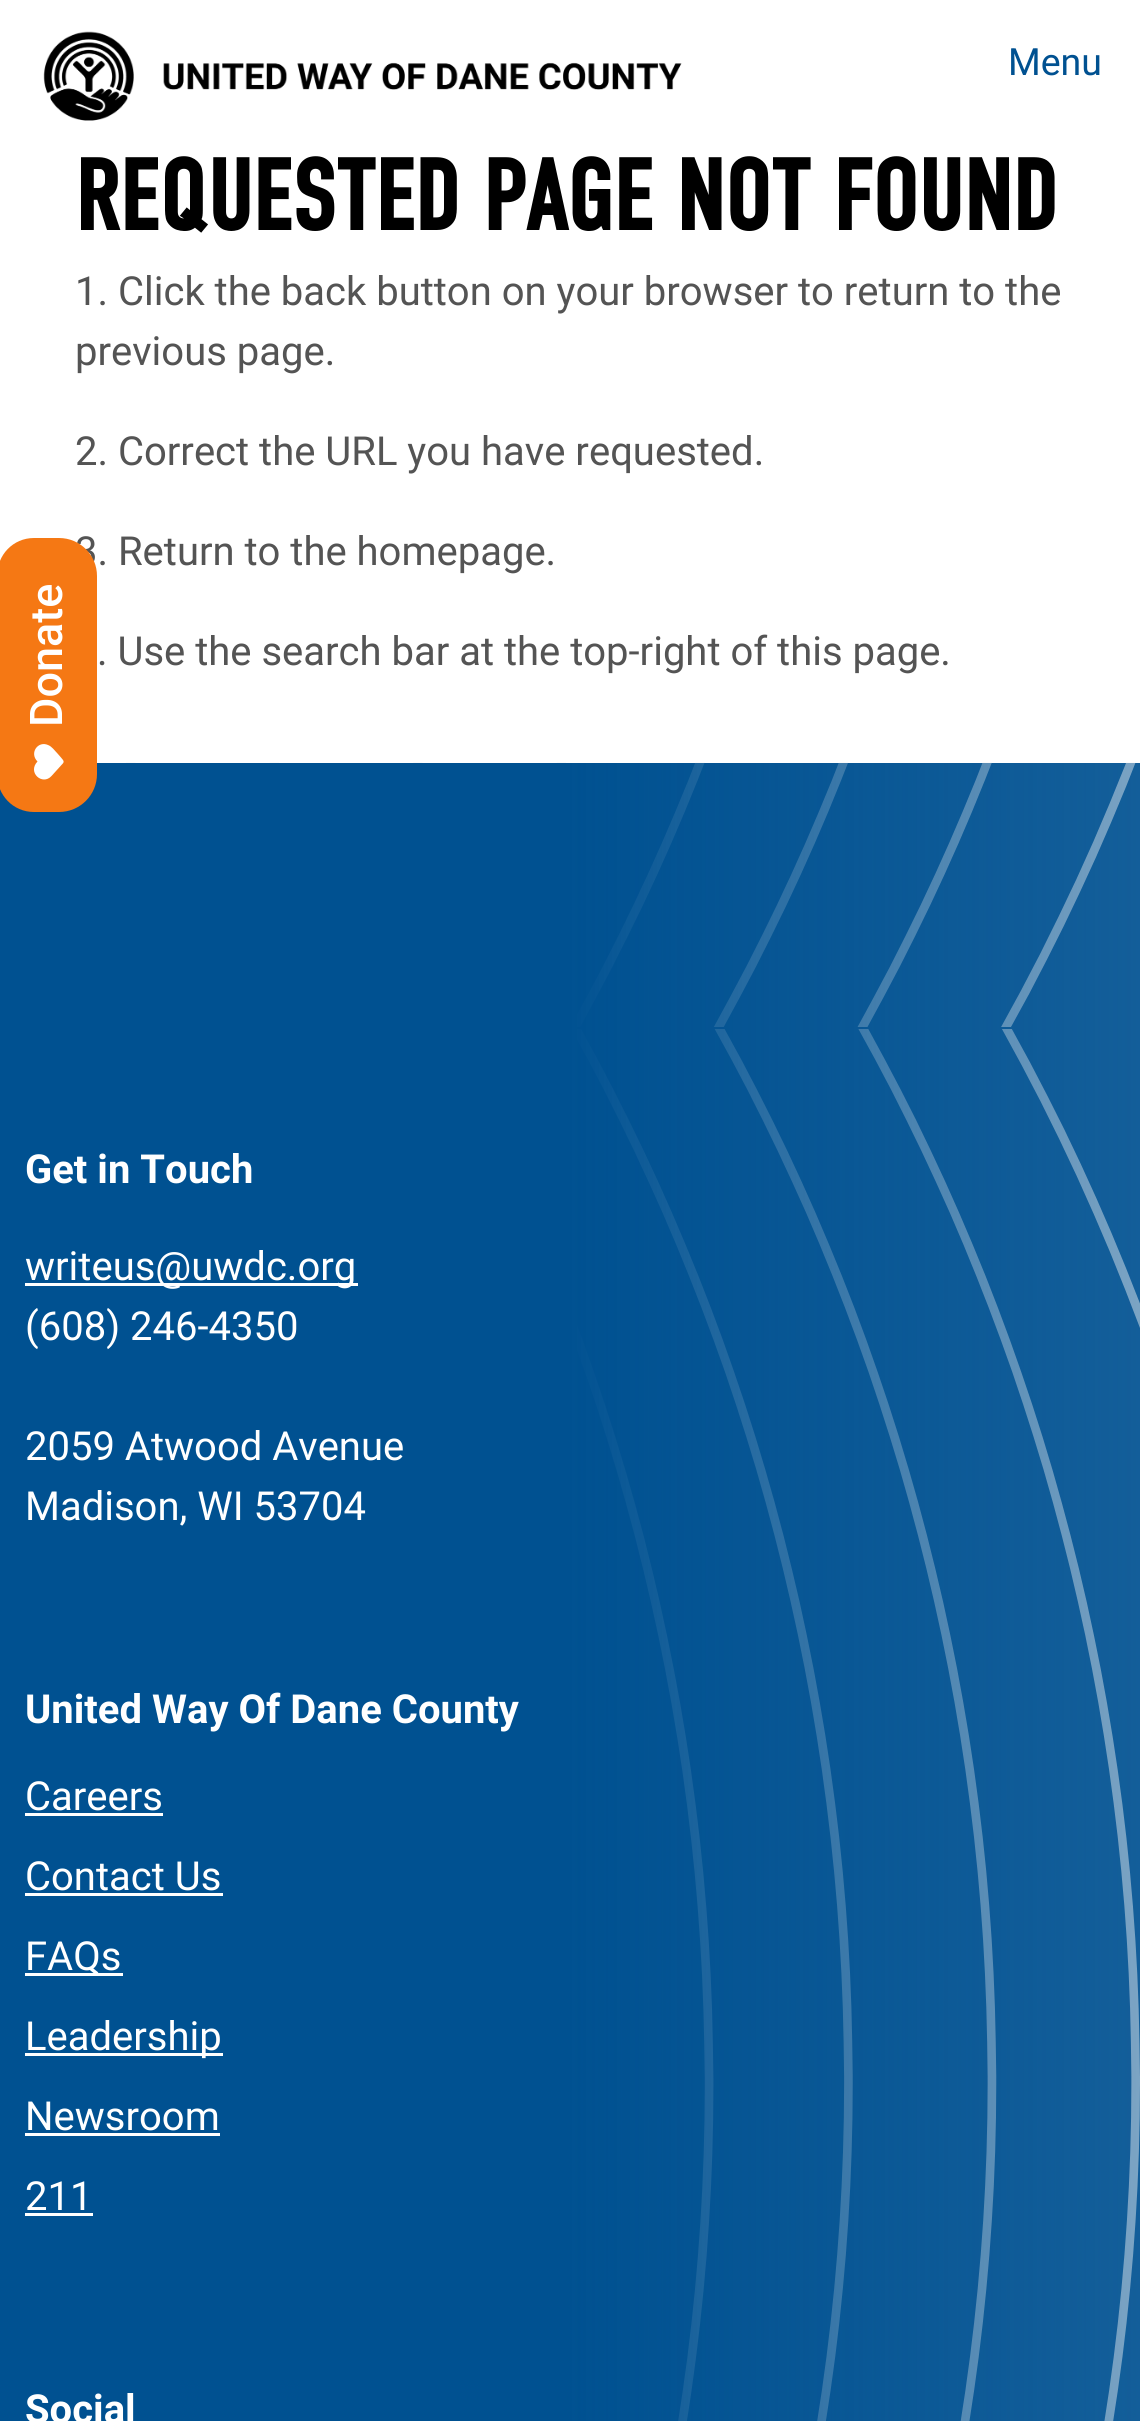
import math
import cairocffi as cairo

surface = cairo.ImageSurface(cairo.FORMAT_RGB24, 1140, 2421)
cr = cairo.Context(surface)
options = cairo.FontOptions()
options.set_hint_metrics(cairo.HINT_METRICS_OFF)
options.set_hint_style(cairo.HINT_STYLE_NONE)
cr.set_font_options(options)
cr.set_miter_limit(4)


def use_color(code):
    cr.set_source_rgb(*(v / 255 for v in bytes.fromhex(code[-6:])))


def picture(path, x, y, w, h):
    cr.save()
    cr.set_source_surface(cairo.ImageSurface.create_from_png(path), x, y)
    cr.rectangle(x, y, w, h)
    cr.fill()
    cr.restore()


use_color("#ffffff")
cr.paint()
picture("img1.png", 43, 31, 639, 90)
cr.select_font_face("Roboto")
cr.set_font_size(37.5)
use_color("#005191")
cr.move_to(1008, 75)
cr.show_text("Menu")
cr.select_font_face("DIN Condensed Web", cairo.FONT_SLANT_NORMAL, cairo.FONT_WEIGHT_BOLD)
cr.set_font_size(100)
use_color("#000000")
cr.move_to(75, 230)
cr.show_text("REQUESTED PAGE NOT FOUND")
cr.select_font_face("Roboto")
cr.set_font_size(40)
use_color("#545454")
cr.move_to(75, 305)
cr.show_text("1. Click the back button on your browser to return to the")
cr.move_to(75, 365)
cr.show_text("previous page.")
cr.move_to(75, 465)
cr.show_text("2. Correct the URL you have requested.")
cr.move_to(75, 565)
cr.show_text("3. Return to the homepage.")
cr.move_to(97, 665)
cr.show_text(". Use the search bar at the top-right of this page.")
use_color("#266ba2")
cr.rectangle(577, 763, 563, 1658)
cr.fill()
picture("img2.png", 126, 762, 1014, 1659)
gradient = cairo.LinearGradient(0, 1888, 1140, 1888)
gradient.add_color_stop_rgba(0, 0, 0.318, 0.569, 1)
gradient.add_color_stop_rgba(0.5, 0, 0.318, 0.569, 1)
gradient.add_color_stop_rgba(1, 0, 0.318, 0.569, 0.5)
cr.set_source(gradient)
cr.rectangle(0, 763, 1140, 1658)
cr.fill()
use_color("#f57814")
cr.new_path()
cr.move_to(-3, 774)
cr.line_to(-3, 576)
cr.curve_to(-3, 555, 13, 538, 34, 538)
cr.line_to(59, 538)
cr.curve_to(80, 538, 97, 555, 97, 576)
cr.line_to(97, 774)
cr.curve_to(97, 795, 80, 812, 59, 812)
cr.line_to(34, 812)
cr.curve_to(13, 812, -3, 795, -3, 774)
cr.close_path()
cr.fill()
cr.select_font_face("Roboto Medium")
cr.set_font_size(45)
use_color("#ffffff")
cr.save()
cr.translate(62, 727)
cr.rotate(-90 * math.pi / 180)
cr.move_to(0, 0)
cr.show_text("Donate")
cr.restore()
cr.new_path()
cr.move_to(51.5, 776)
cr.line_to(63, 763.5)
cr.line_to(51.5, 776)
cr.line_to(61, 765.5)
cr.curve_to(64.5, 762, 64.5, 761.5, 61, 757.5)
cr.line_to(57.5, 753.5)
cr.curve_to(54.5, 750.5, 52, 746.5, 48, 745)
cr.curve_to(38, 740.5, 29, 753, 37.5, 761.5)
cr.curve_to(27, 772.5, 42.5, 786, 51.5, 776)
cr.close_path()
cr.fill()
cr.select_font_face("Roboto", cairo.FONT_SLANT_NORMAL, cairo.FONT_WEIGHT_BOLD)
cr.set_font_size(40)
cr.move_to(25, 1183)
cr.show_text("Get in Touch")
cr.rectangle(25, 1283, 333, 3)
cr.fill()
cr.select_font_face("Roboto")
cr.move_to(25, 1280)
cr.show_text("writeus@uwdc.org")
cr.move_to(25, 1340)
cr.show_text("(608) 246-4350")
cr.move_to(25, 1460)
cr.show_text("2059 Atwood Avenue")
cr.move_to(25, 1520)
cr.show_text("Madison, WI 53704")
cr.select_font_face("Roboto", cairo.FONT_SLANT_NORMAL, cairo.FONT_WEIGHT_BOLD)
cr.move_to(25, 1723)
cr.show_text("United Way Of Dane County")
cr.select_font_face("Roboto")
cr.move_to(25, 1810)
cr.show_text("Careers")
cr.rectangle(25, 1813, 138, 3)
cr.fill()
cr.move_to(25, 1890)
cr.show_text("Contact Us")
cr.rectangle(25, 1893, 198, 3)
cr.fill()
cr.rectangle(25, 1973, 98, 3)
cr.fill()
cr.move_to(25, 1970)
cr.show_text("FAQs")
cr.rectangle(25, 2053, 198, 3)
cr.fill()
cr.move_to(25, 2050)
cr.show_text("Leadership")
cr.move_to(25, 2130)
cr.show_text("Newsroom")
cr.rectangle(25, 2133, 195, 3)
cr.fill()
cr.move_to(25, 2210)
cr.show_text("211")
cr.rectangle(25, 2213, 68, 3)
cr.fill()
cr.select_font_face("Roboto", cairo.FONT_SLANT_NORMAL, cairo.FONT_WEIGHT_BOLD)
cr.move_to(25, 2423)
cr.show_text("Social")
surface.write_to_png("result.png")
